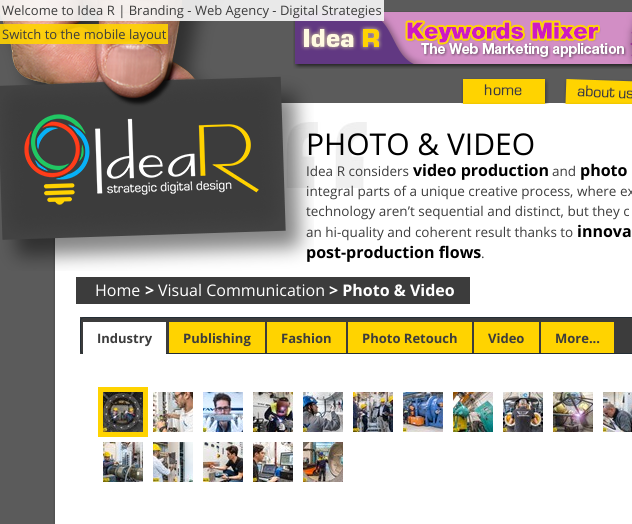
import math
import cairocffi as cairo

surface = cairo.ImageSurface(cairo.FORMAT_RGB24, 632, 524)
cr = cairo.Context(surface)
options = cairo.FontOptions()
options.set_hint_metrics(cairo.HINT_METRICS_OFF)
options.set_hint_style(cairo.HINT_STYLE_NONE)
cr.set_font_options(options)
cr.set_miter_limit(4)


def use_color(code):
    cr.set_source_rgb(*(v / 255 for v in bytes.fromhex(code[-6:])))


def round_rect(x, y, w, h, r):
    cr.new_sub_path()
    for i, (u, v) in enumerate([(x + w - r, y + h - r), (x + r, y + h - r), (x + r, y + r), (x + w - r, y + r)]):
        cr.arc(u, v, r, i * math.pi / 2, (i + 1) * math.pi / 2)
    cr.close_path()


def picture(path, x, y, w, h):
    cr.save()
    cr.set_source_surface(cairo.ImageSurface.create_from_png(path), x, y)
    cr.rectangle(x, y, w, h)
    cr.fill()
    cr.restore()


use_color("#5b5b5b")
cr.paint()
picture("img2.png", 293, 11, 339, 58)
use_color("#ffffff")
cr.rectangle(281, 103, 351, 19)
cr.fill()
picture("img6.png", 53, 122, 579, 402)
picture("img5.png", 286, 122, 81, 66)
cr.select_font_face("Open Sans")
cr.set_font_size(30)
use_color("#000000")
cr.move_to(306, 155)
cr.show_text("PHOTO & VIDEO")
cr.set_font_size(13.5)
use_color("#3c3c3c")
cr.move_to(306, 176)
cr.show_text("Idea R considers")
cr.move_to(306, 196)
cr.show_text("integral parts of a unique creative process, where ex")
cr.move_to(306, 216)
cr.show_text("technology aren’t sequential and distinct, but they c")
cr.move_to(306, 237)
cr.show_text("an hi-quality and coherent result thanks to")
cr.select_font_face("Open Sans", cairo.FONT_SLANT_NORMAL, cairo.FONT_WEIGHT_BOLD)
cr.set_font_size(16)
use_color("#000000")
cr.move_to(306, 258)
cr.show_text("post-production flows")
picture("img1.png", 0, 0, 314, 271)
cr.set_source_rgba(0.973, 0.973, 0.973, 0.9)
cr.rectangle(0, 0, 384, 21)
cr.fill()
cr.select_font_face("Open Sans")
cr.set_font_size(13)
use_color("#3c3c3c")
cr.move_to(2, 15)
cr.show_text("Welcome to Idea R | Branding - Web Agency - Digital Strategies")
cr.set_source_rgba(1, 0.827, 0, 0.9)
cr.rectangle(0, 24, 168, 20)
cr.fill()
use_color("#3c3c3c")
cr.move_to(2, 39)
cr.show_text("Switch to the mobile layout")
picture("img3.png", 461, 78, 88, 26)
picture("img4.png", 563, 79, 69, 25)
cr.select_font_face("Open Sans", cairo.FONT_SLANT_NORMAL, cairo.FONT_WEIGHT_BOLD)
cr.set_font_size(16)
use_color("#000000")
cr.move_to(413, 176)
cr.show_text("video production")
cr.select_font_face("Open Sans")
cr.set_font_size(13.5)
use_color("#3c3c3c")
cr.move_to(552, 176)
cr.show_text("and")
cr.select_font_face("Open Sans", cairo.FONT_SLANT_NORMAL, cairo.FONT_WEIGHT_BOLD)
cr.set_font_size(16)
use_color("#000000")
cr.move_to(580, 176)
cr.show_text("photo")
cr.move_to(577, 237)
cr.show_text("innova")
cr.select_font_face("Open Sans")
cr.set_font_size(13.5)
use_color("#3c3c3c")
cr.move_to(481, 258)
cr.show_text(".")
cr.rectangle(76, 277, 394, 27)
cr.fill()
cr.set_font_size(16)
use_color("#ffffff")
cr.move_to(95, 296)
cr.show_text("Home")
cr.select_font_face("Open Sans", cairo.FONT_SLANT_NORMAL, cairo.FONT_WEIGHT_BOLD)
cr.move_to(145, 296)
cr.show_text(">")
cr.select_font_face("Open Sans")
cr.move_to(158, 296)
cr.show_text("Visual Communication")
cr.select_font_face("Open Sans", cairo.FONT_SLANT_NORMAL, cairo.FONT_WEIGHT_BOLD)
cr.move_to(329, 296)
cr.show_text("> Photo & Video")
use_color("#3c3c3c")
cr.rectangle(84, 318, 548, 35)
cr.fill()
cr.rectangle(80, 317, 4, 37)
cr.fill()
round_rect(80.5, 317.5, 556, 36, 3.5)
use_color("#242e35")
cr.set_line_width(1)
cr.stroke()
use_color("#ffffff")
cr.rectangle(83, 322, 83, 32)
cr.fill()
cr.set_font_size(13)
use_color("#3c3c3c")
cr.move_to(97, 343)
cr.show_text("Industry")
use_color("#ffd300")
cr.rectangle(169, 322, 96, 31)
cr.fill()
use_color("#3c3c3c")
cr.move_to(183, 343)
cr.show_text("Publishing")
use_color("#ffd300")
cr.rectangle(267, 322, 79, 31)
cr.fill()
use_color("#3c3c3c")
cr.move_to(281, 343)
cr.show_text("Fashion")
use_color("#ffd300")
cr.rectangle(348, 322, 124, 31)
cr.fill()
use_color("#3c3c3c")
cr.move_to(362, 343)
cr.show_text("Photo Retouch")
use_color("#ffd300")
cr.rectangle(474, 322, 65, 31)
cr.fill()
use_color("#3c3c3c")
cr.move_to(488, 343)
cr.show_text("Video")
use_color("#ffd300")
cr.rectangle(541, 322, 73, 31)
cr.fill()
use_color("#3c3c3c")
cr.move_to(555, 343)
cr.show_text("More...")
cr.rectangle(100.5, 389.5, 45, 45)
use_color("#ffd300")
cr.set_line_width(5)
cr.stroke()
picture("img7.png", 103, 392, 40, 40)
picture("img8.png", 153, 392, 40, 40)
picture("img9.png", 203, 392, 40, 40)
picture("img10.png", 253, 392, 40, 40)
picture("img11.png", 303, 392, 40, 40)
picture("img12.png", 353, 392, 40, 40)
picture("img13.png", 403, 392, 40, 40)
picture("img14.png", 453, 392, 40, 40)
picture("img15.png", 503, 392, 40, 40)
picture("img16.png", 553, 392, 40, 40)
picture("img17.png", 603, 392, 29, 40)
picture("img18.png", 103, 442, 40, 40)
picture("img19.png", 153, 442, 40, 40)
picture("img20.png", 203, 442, 40, 40)
picture("img21.png", 253, 442, 40, 40)
picture("img22.png", 303, 442, 40, 40)
surface.write_to_png("result.png")
